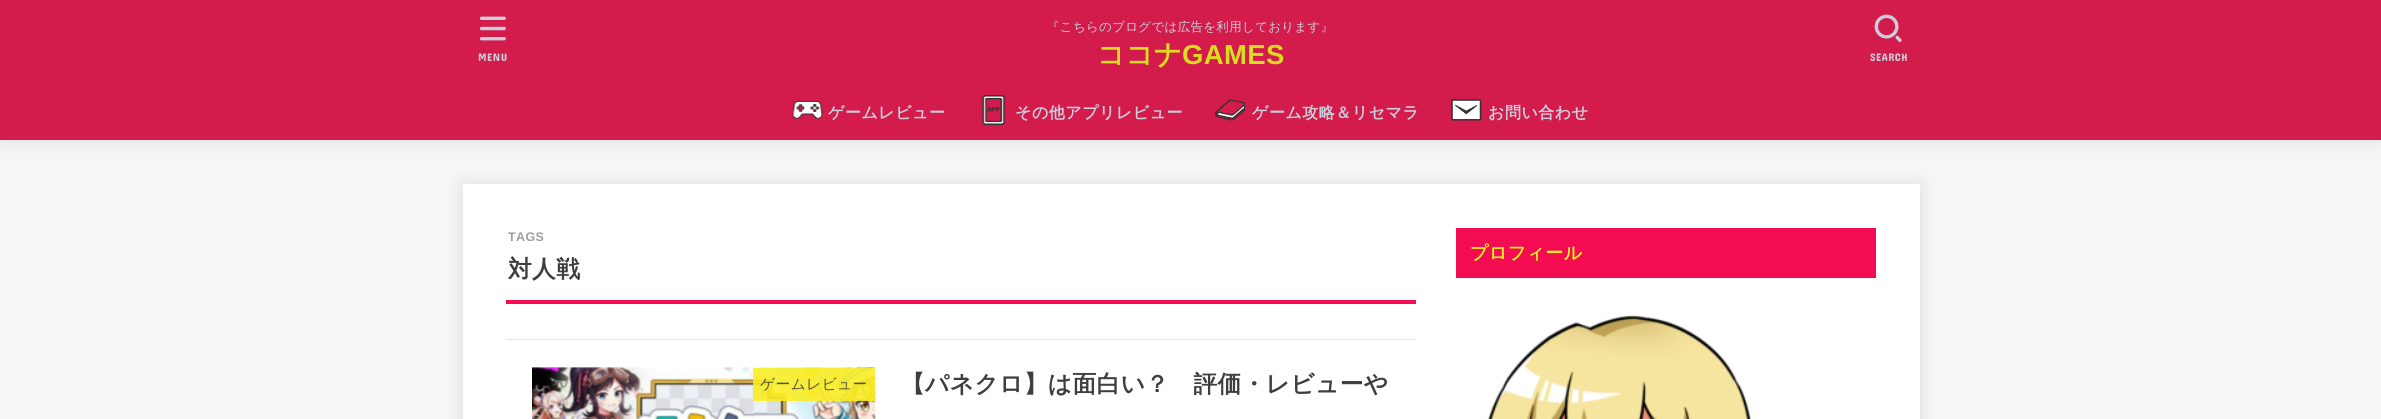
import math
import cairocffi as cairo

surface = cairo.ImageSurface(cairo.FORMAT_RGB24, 2381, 419)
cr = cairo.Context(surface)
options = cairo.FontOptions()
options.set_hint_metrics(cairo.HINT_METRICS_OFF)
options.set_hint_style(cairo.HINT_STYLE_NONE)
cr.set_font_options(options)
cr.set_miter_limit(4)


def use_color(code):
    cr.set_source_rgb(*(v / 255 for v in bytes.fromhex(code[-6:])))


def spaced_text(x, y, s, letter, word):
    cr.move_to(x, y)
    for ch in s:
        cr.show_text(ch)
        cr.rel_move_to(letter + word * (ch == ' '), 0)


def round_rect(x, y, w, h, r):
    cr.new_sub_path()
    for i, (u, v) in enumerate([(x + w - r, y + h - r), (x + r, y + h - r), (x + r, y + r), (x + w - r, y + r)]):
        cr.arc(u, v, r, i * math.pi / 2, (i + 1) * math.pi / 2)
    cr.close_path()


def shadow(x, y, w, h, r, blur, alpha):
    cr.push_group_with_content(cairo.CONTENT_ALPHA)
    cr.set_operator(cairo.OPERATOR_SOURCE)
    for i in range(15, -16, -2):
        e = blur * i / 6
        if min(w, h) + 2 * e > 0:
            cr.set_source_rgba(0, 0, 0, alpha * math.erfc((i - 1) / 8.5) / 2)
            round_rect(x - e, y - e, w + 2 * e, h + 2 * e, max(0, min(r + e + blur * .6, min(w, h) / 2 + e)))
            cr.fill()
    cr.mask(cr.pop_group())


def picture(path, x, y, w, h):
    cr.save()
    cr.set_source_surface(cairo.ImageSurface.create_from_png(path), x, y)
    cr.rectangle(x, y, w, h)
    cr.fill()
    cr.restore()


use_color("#f7f7f7")
cr.paint()
use_color("#666666")
shadow(0, 0, 2381, 140, 0, 9.5, 0.2)
use_color("#d31b4c")
cr.rectangle(0, 0, 2381, 140)
cr.fill()
picture("img1.png", 479, 16, 27, 25)
cr.select_font_face("Concert One")
cr.set_font_size(11)
use_color("#cecedb")
spaced_text(478, 61, "MENU", 0.5, 0)
cr.select_font_face("WenQuanYi Zen Hei Medium")
cr.set_font_size(12.5)
spaced_text(1047, 31, "『こちらのブログでは広告を利用しております』", 0.3, 0)
cr.select_font_face("WenQuanYi Zen Hei", cairo.FONT_SLANT_NORMAL, cairo.FONT_WEIGHT_BOLD)
cr.set_font_size(27.5)
use_color("#dadd1f")
spaced_text(1097, 64, "ココナ", 0.4, 0)
cr.select_font_face("Liberation Sans", cairo.FONT_SLANT_NORMAL, cairo.FONT_WEIGHT_BOLD)
spaced_text(1182, 64, "GAMES", 0.4, 0)
picture("img2.png", 1874, 14, 28, 28)
cr.select_font_face("Concert One")
cr.set_font_size(11)
use_color("#cecedb")
spaced_text(1870, 61, "SEARCH", 0.5, 0)
picture("img3.png", 792, 100, 32, 19)
cr.select_font_face("WenQuanYi Zen Hei", cairo.FONT_SLANT_NORMAL, cairo.FONT_WEIGHT_BOLD)
cr.set_font_size(16)
spaced_text(828, 118, "ゲームレビュー", 0.5, 0)
picture("img4.png", 982, 95, 24, 30)
spaced_text(1015, 118, "その他アプリレビュー", 0.5, 0)
picture("img5.png", 1215, 99, 30, 22)
spaced_text(1252, 118, "ゲーム攻略＆リセマラ", 0.5, 0)
picture("img6.png", 1451, 99, 31, 22)
spaced_text(1488, 118, "お問い合わせ", 0.5, 0)
use_color("#666666")
shadow(463, 184, 1457, 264, 0, 9.5, 0.2)
use_color("#ffffff")
cr.rectangle(463, 184, 1457, 235)
cr.fill()
use_color("#f40c52")
cr.rectangle(506, 300, 910, 4)
cr.fill()
cr.select_font_face("Liberation Sans", cairo.FONT_SLANT_NORMAL, cairo.FONT_WEIGHT_BOLD)
cr.set_font_size(12.5)
use_color("#9f9f9f")
spaced_text(508, 241, "TAGS", 0.4, 0)
cr.select_font_face("WenQuanYi Zen Hei", cairo.FONT_SLANT_NORMAL, cairo.FONT_WEIGHT_BOLD)
cr.set_font_size(23.7)
use_color("#3e3e3e")
spaced_text(508, 277, "対人戦", 0.4, 0)
use_color("#e6e6e6")
cr.rectangle(506, 339, 910, 1)
cr.fill()
picture("img7.png", 532, 367, 344, 52)
cr.set_source_rgba(0.988, 0.933, 0.129, 0.88)
cr.rectangle(753, 368, 122, 33)
cr.fill()
cr.select_font_face("WenQuanYi Zen Hei Medium")
cr.set_font_size(14.75)
use_color("#54533d")
spaced_text(760, 389, "ゲームレビュー", 0.4, 0)
cr.select_font_face("WenQuanYi Zen Hei", cairo.FONT_SLANT_NORMAL, cairo.FONT_WEIGHT_BOLD)
cr.set_font_size(23.7)
use_color("#3e3e3e")
spaced_text(901, 392, "【パネクロ】は面白い？　評価・レビューや", 0.4, 0)
use_color("#f40c52")
cr.rectangle(1456, 228, 420, 50)
cr.fill()
cr.set_font_size(18)
use_color("#eeee22")
spaced_text(1470, 259, "プロフィール", 0.4, 0)
picture("img8.png", 1487, 315, 265, 104)
surface.write_to_png("result.png")
